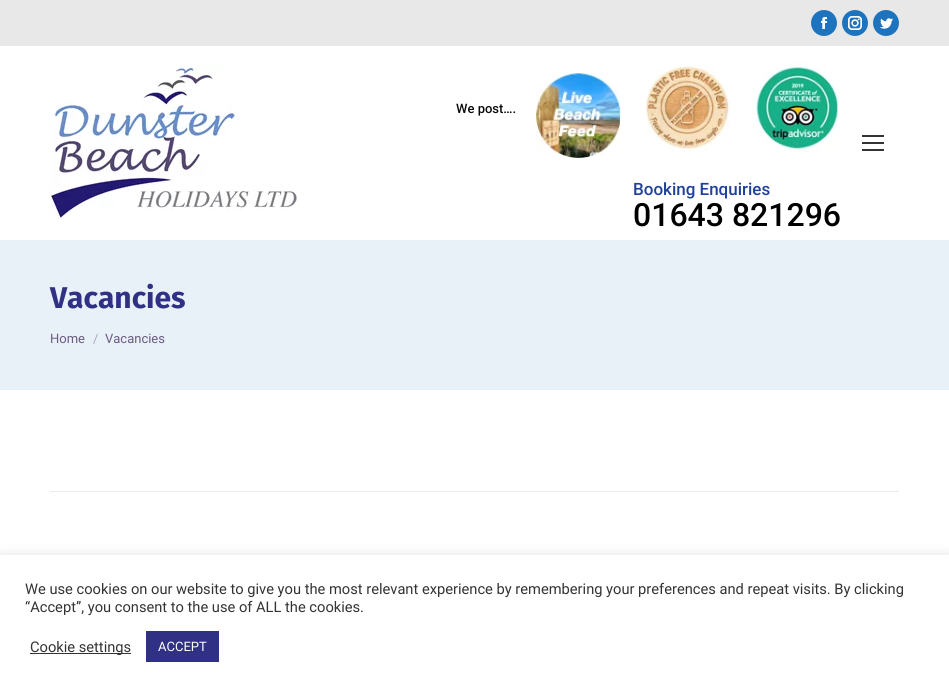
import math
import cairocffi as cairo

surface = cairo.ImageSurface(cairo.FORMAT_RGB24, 949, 692)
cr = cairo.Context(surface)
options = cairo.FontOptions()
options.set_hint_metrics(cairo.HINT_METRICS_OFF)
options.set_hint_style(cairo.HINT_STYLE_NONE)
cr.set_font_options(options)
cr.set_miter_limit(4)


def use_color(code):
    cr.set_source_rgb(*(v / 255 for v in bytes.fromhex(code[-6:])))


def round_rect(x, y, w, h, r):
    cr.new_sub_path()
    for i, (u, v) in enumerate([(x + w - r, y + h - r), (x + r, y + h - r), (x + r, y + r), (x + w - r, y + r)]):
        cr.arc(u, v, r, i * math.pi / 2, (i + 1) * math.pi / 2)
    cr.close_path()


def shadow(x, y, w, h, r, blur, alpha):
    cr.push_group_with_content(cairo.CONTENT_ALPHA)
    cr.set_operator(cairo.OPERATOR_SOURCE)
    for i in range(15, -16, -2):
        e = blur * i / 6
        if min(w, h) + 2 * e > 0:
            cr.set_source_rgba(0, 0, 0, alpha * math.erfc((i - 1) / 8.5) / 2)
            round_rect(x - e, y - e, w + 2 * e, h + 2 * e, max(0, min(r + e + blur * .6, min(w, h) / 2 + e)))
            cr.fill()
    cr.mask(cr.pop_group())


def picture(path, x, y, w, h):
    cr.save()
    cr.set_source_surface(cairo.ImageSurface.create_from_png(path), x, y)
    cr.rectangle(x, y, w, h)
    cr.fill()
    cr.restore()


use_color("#ffffff")
cr.paint()
use_color("#e8e8e8")
cr.rectangle(0, 0, 949, 46)
cr.fill()
use_color("#1e73be")
cr.arc(824, 23, 13, 0, 2 * math.pi)
cr.fill()
picture("img1.png", 821, 17, 6, 12)
cr.arc(855, 23, 13, 0, 2 * math.pi)
cr.fill()
picture("img2.png", 848, 16, 14, 14)
cr.arc(886, 23, 13, 0, 2 * math.pi)
cr.fill()
picture("img3.png", 880, 18, 13, 11)
picture("img4.png", 50, 66, 248, 152)
cr.select_font_face("Roboto Medium")
cr.set_font_size(13)
use_color("#0a0a0a")
cr.move_to(456, 113)
cr.show_text("We post….")
picture("img5.png", 536, 73, 85, 85)
picture("img6.png", 645, 66, 86, 86)
picture("img7.png", 751, 62, 90, 90)
cr.set_font_size(17)
use_color("#20409a")
cr.move_to(633, 195)
cr.show_text("Booking Enquiries")
cr.set_font_size(32)
use_color("#000000")
cr.move_to(633, 226)
cr.show_text("01643 821296")
use_color("#333333")
cr.rectangle(862, 135, 22, 2)
cr.fill()
cr.rectangle(862, 142, 22, 2)
cr.fill()
cr.rectangle(862, 149, 22, 2)
cr.fill()
use_color("#e9f1f8")
cr.rectangle(0, 240, 949, 150)
cr.fill()
cr.select_font_face("Fira Sans", cairo.FONT_SLANT_NORMAL, cairo.FONT_WEIGHT_BOLD)
cr.set_font_size(30)
use_color("#303185")
cr.move_to(50, 308)
cr.show_text("Vacancies")
cr.select_font_face("Roboto")
cr.set_font_size(13)
use_color("#6b5b81")
cr.move_to(50, 343)
cr.show_text("Home")
use_color("#aaa6bd")
cr.move_to(93, 343)
cr.show_text("/")
use_color("#6b5b81")
cr.move_to(105, 343)
cr.show_text("Vacancies")
use_color("#ebebeb")
cr.rectangle(50, 491, 849, 1)
cr.fill()
use_color("#acabab")
shadow(0, 554, 949, 137, 0, 5, 0.3)
use_color("#ffffff")
cr.rectangle(0, 555, 949, 137)
cr.fill()
cr.set_font_size(14.67)
use_color("#333333")
cr.move_to(25, 594)
cr.show_text("We use cookies on our website to give you the most relevant experience by remembering your preferences and repeat visits. By clicking")
cr.move_to(25, 612)
cr.show_text("“Accept”, you consent to the use of ALL the cookies.")
cr.rectangle(30, 653, 101, 1)
cr.fill()
cr.move_to(30, 652)
cr.show_text("Cookie settings")
use_color("#303185")
cr.rectangle(146, 631, 73, 31)
cr.fill()
cr.set_font_size(13)
use_color("#ffffff")
cr.move_to(158, 651)
cr.show_text("ACCEPT")
surface.write_to_png("result.png")
